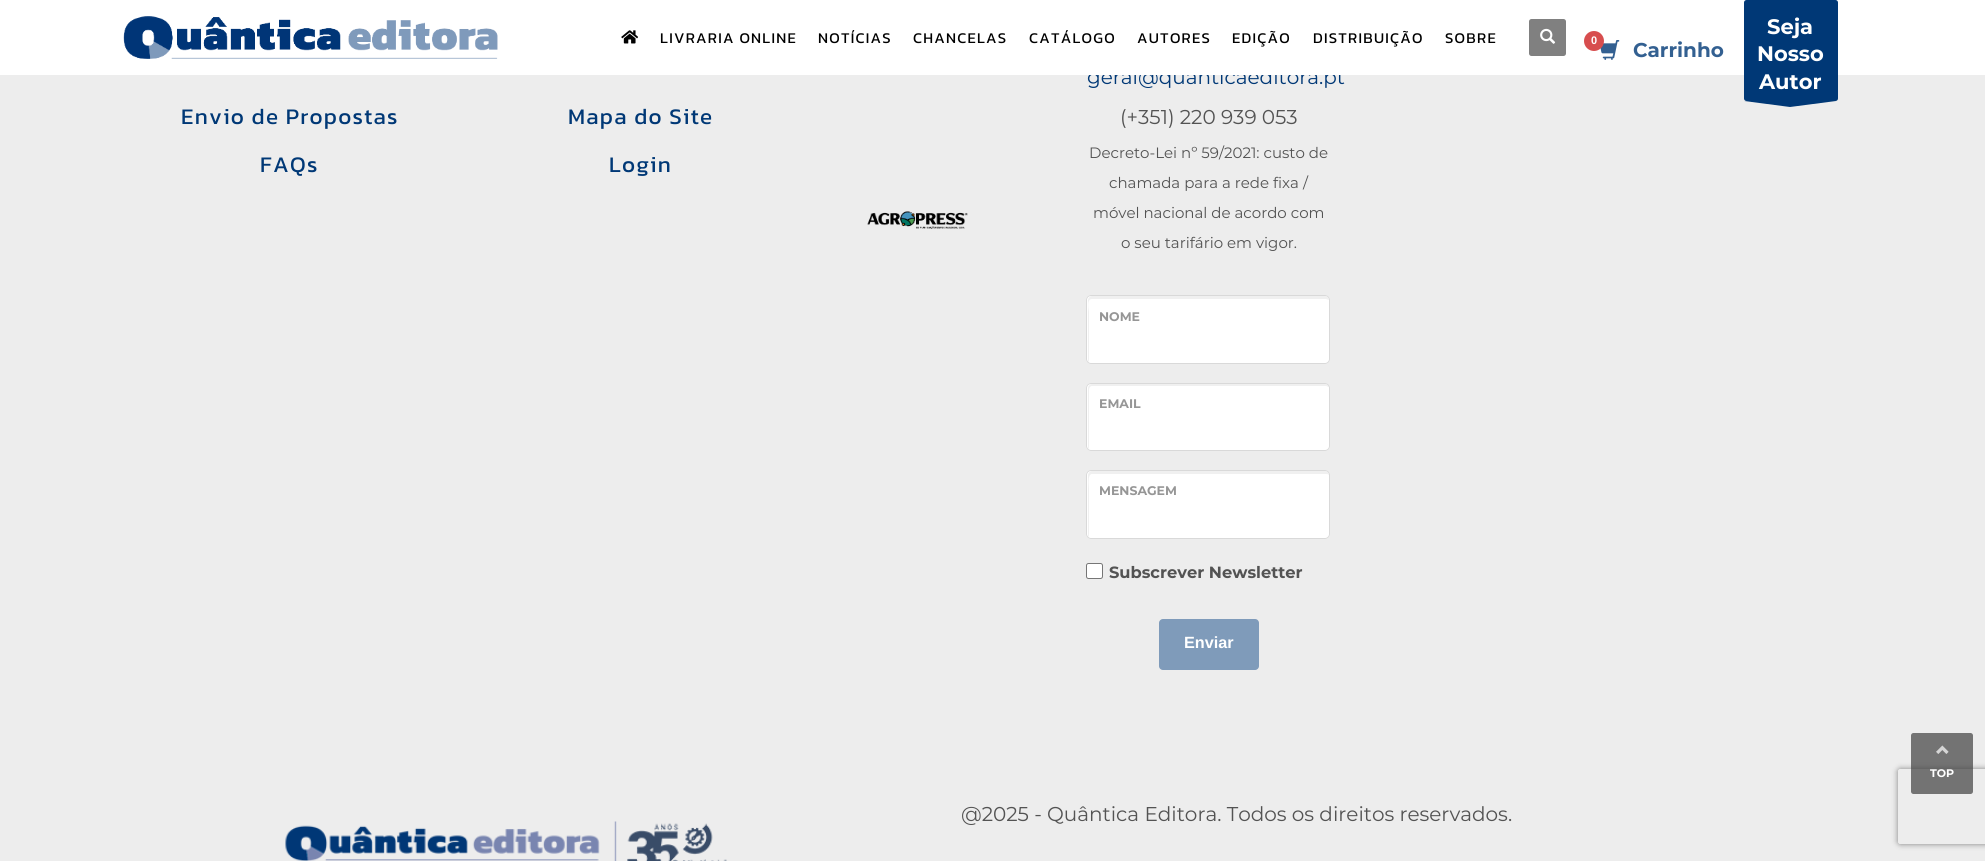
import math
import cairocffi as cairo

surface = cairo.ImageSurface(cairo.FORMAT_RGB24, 1985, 861)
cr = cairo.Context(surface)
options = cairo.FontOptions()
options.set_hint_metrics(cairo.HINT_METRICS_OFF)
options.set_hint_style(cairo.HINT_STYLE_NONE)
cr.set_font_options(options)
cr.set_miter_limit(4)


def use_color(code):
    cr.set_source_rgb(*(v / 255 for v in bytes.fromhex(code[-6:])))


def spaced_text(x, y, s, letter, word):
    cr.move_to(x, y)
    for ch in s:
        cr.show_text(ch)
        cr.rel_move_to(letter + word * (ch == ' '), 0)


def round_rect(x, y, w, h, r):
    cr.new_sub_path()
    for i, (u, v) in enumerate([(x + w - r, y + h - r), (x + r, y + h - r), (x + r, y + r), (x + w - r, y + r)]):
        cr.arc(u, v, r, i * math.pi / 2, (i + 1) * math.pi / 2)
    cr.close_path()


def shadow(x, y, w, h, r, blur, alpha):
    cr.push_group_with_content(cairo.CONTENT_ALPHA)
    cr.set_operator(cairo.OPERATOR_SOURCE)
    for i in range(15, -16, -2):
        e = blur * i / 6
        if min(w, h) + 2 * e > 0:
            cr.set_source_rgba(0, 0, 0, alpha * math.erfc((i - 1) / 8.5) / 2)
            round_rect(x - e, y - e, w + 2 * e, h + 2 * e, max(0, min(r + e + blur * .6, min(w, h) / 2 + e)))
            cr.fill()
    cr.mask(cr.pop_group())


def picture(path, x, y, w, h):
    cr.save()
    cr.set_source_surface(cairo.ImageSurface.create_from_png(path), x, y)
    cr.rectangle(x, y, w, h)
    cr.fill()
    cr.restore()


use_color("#ededed")
cr.paint()
cr.select_font_face("Montserrat")
cr.set_font_size(20)
use_color("#003876")
cr.move_to(1087, 84)
cr.show_text("geral@quanticaeditora.pt")
use_color("#ffffff")
cr.rectangle(0, 0, 1985, 75)
cr.fill()
picture("img1.png", 123, 16, 375, 43)
picture("img2.png", 621, 30, 17, 14)
cr.select_font_face("Kanit")
cr.set_font_size(15)
use_color("#000000")
spaced_text(660, 43, "LIVRARIA ONLINE", 1.25, 0)
spaced_text(818, 43, "NOTÍCIAS", 1.25, 0)
spaced_text(913, 43, "CHANCELAS", 1.25, 0)
spaced_text(1029, 43, "CATÁLOGO", 1.25, 0)
spaced_text(1137, 43, "AUTORES", 1.25, 0)
spaced_text(1232, 43, "EDIÇÃO", 1.25, 0)
spaced_text(1313, 43, "DISTRIBUIÇÃO", 1.25, 0)
spaced_text(1445, 43, "SOBRE", 1.25, 0)
use_color("#808080")
round_rect(1529, 19, 37, 37, 2.5)
cr.fill()
picture("img3.png", 1540, 28, 16, 16)
picture("img4.png", 1600, 40, 20, 20)
use_color("#d74d4e")
cr.arc(1594, 41, 10, 0, 2 * math.pi)
cr.fill()
cr.select_font_face("Liberation Sans", cairo.FONT_SLANT_NORMAL, cairo.FONT_WEIGHT_BOLD)
cr.set_font_size(11)
use_color("#ffffff")
cr.move_to(1591, 44)
cr.show_text("0")
cr.select_font_face("Montserrat", cairo.FONT_SLANT_NORMAL, cairo.FONT_WEIGHT_BOLD)
cr.set_font_size(20)
use_color("#336091")
cr.move_to(1633, 57)
cr.show_text("Carrinho")
use_color("#003876")
round_rect(1744, 0, 94, 101, 2.5)
cr.fill()
cr.set_font_size(21)
use_color("#ffffff")
cr.move_to(1767, 34)
cr.show_text("Seja")
cr.move_to(1757, 61)
cr.show_text("Nosso")
cr.move_to(1759, 89)
cr.show_text("Autor")
use_color("#003876")
cr.set_fill_rule(cairo.FILL_RULE_EVEN_ODD)
cr.new_path()
cr.move_to(1836, 101)
cr.line_to(1790, 107)
cr.line_to(1744, 101)
cr.close_path()
cr.fill()
cr.select_font_face("Kanit")
cr.set_font_size(22.5)
spaced_text(181, 124, "Envio de Propostas", 1.25, 0)
spaced_text(260, 172, "FAQs", 1.25, 0)
spaced_text(568, 124, "Mapa do Site", 1.25, 0)
spaced_text(609, 172, "Login", 1.25, 0)
cr.select_font_face("Montserrat")
cr.set_font_size(20)
use_color("#535353")
cr.move_to(1120, 124)
cr.show_text("(+351) 220 939 053")
cr.set_font_size(15)
cr.move_to(1089, 158)
cr.show_text("Decreto-Lei nº 59/2021: custo de")
cr.move_to(1109, 188)
cr.show_text("chamada para a rede fixa /")
cr.move_to(1093, 218)
cr.show_text("móvel nacional de acordo com")
cr.move_to(1121, 248)
cr.show_text("o seu tarifário em vigor.")
use_color("#ffffff")
round_rect(1086, 295, 244, 69, 5)
cr.fill()
use_color("#f0f0f0")
cr.set_fill_rule(cairo.FILL_RULE_WINDING)
cr.new_path()
cr.move_to(1092, 299)
cr.line_to(1326, 299)
cr.line_to(1329, 300)
cr.curve_to(1329, 298, 1327, 296, 1325, 296)
cr.line_to(1092, 296)
cr.curve_to(1090, 296, 1088, 298, 1088, 300)
cr.line_to(1088, 359)
cr.curve_to(1088, 360, 1088, 361, 1089, 362)
cr.line_to(1089, 312)
cr.curve_to(1089, 310, 1086, 299, 1092, 299)
cr.close_path()
cr.fill()
round_rect(1086.5, 295.5, 243, 68, 4.5)
use_color("#d9d9d9")
cr.set_line_width(1)
cr.stroke()
cr.select_font_face("Montserrat", cairo.FONT_SLANT_NORMAL, cairo.FONT_WEIGHT_BOLD)
cr.set_font_size(12.5)
use_color("#969696")
cr.move_to(1099, 321)
cr.show_text("NOME")
use_color("#ffffff")
round_rect(1086, 383, 244, 68, 5)
cr.fill()
use_color("#f0f0f0")
cr.new_path()
cr.move_to(1092, 386)
cr.line_to(1326, 386)
cr.curve_to(1327, 386, 1328, 387, 1329, 387)
cr.curve_to(1329, 386, 1327, 384, 1325, 384)
cr.line_to(1092, 384)
cr.curve_to(1090, 384, 1088, 386, 1088, 388)
cr.line_to(1088, 446)
cr.curve_to(1088, 447, 1088, 448, 1089, 449)
cr.line_to(1089, 390)
cr.curve_to(1089, 388, 1090, 386, 1092, 386)
cr.close_path()
cr.fill()
round_rect(1086.5, 383.5, 243, 67, 4.5)
use_color("#d9d9d9")
cr.stroke()
use_color("#969696")
cr.move_to(1099, 408)
cr.show_text("EMAIL")
use_color("#ffffff")
round_rect(1086, 470, 244, 69, 5)
cr.fill()
use_color("#f0f0f0")
cr.new_path()
cr.move_to(1092, 474)
cr.line_to(1326, 474)
cr.curve_to(1327, 474, 1328, 474, 1329, 475)
cr.curve_to(1329, 473, 1327, 471, 1325, 471)
cr.line_to(1092, 471)
cr.curve_to(1090, 471, 1088, 473, 1088, 475)
cr.line_to(1088, 534)
cr.curve_to(1088, 535, 1088, 536, 1089, 537)
cr.line_to(1089, 488)
cr.curve_to(1089, 487, 1087, 474, 1092, 474)
cr.close_path()
cr.fill()
round_rect(1086.5, 470.5, 243, 68, 4.5)
use_color("#d9d9d9")
cr.stroke()
use_color("#969696")
cr.move_to(1099, 495)
cr.show_text("MENSAGEM")
use_color("#ffffff")
round_rect(1086.5, 563.5, 16, 15, 2)
cr.fill_preserve()
use_color("#767676")
cr.stroke()
cr.set_font_size(16.25)
use_color("#535353")
cr.move_to(1109, 578)
cr.show_text("Subscrever Newsletter")
use_color("#7f9bba")
round_rect(1159, 619, 100, 51, 4)
cr.fill()
cr.select_font_face("Liberation Sans", cairo.FONT_SLANT_NORMAL, cairo.FONT_WEIGHT_BOLD)
use_color("#ffffff")
cr.move_to(1184, 648)
cr.show_text("Enviar")
picture("img5.png", 867, 211, 101, 18)
cr.select_font_face("Montserrat")
cr.set_font_size(20)
use_color("#535353")
cr.move_to(961, 821)
cr.show_text("@2025 - Quântica Editora. Todos os direitos reservados.")
picture("img6.png", 285, 821, 442, 40)
cr.save()
cr.set_fill_rule(cairo.FILL_RULE_EVEN_ODD)
cr.new_path()
cr.move_to(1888, 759)
cr.line_to(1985, 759)
cr.line_to(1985, 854)
cr.line_to(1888, 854)
cr.close_path()
cr.move_to(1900.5, 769)
cr.line_to(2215.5, 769)
cr.curve_to(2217, 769, 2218, 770, 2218, 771.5)
cr.line_to(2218, 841.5)
cr.curve_to(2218, 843, 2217, 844, 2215.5, 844)
cr.line_to(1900.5, 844)
cr.curve_to(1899, 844, 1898, 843, 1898, 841.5)
cr.line_to(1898, 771.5)
cr.curve_to(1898, 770, 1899, 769, 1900.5, 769)
cr.close_path()
cr.clip()
use_color("#808080")
shadow(1898, 769, 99, 75, 2.5, 3, 1)
cr.restore()
cr.set_source_rgba(0.251, 0.251, 0.251, 0.7)
round_rect(1911, 733, 62, 61, 2.5)
cr.fill()
picture("img7.png", 1936, 745, 13, 9)
cr.select_font_face("Montserrat", cairo.FONT_SLANT_NORMAL, cairo.FONT_WEIGHT_BOLD)
cr.set_font_size(11)
use_color("#ffffff")
cr.move_to(1930, 777)
cr.show_text("TOP")
surface.write_to_png("result.png")
